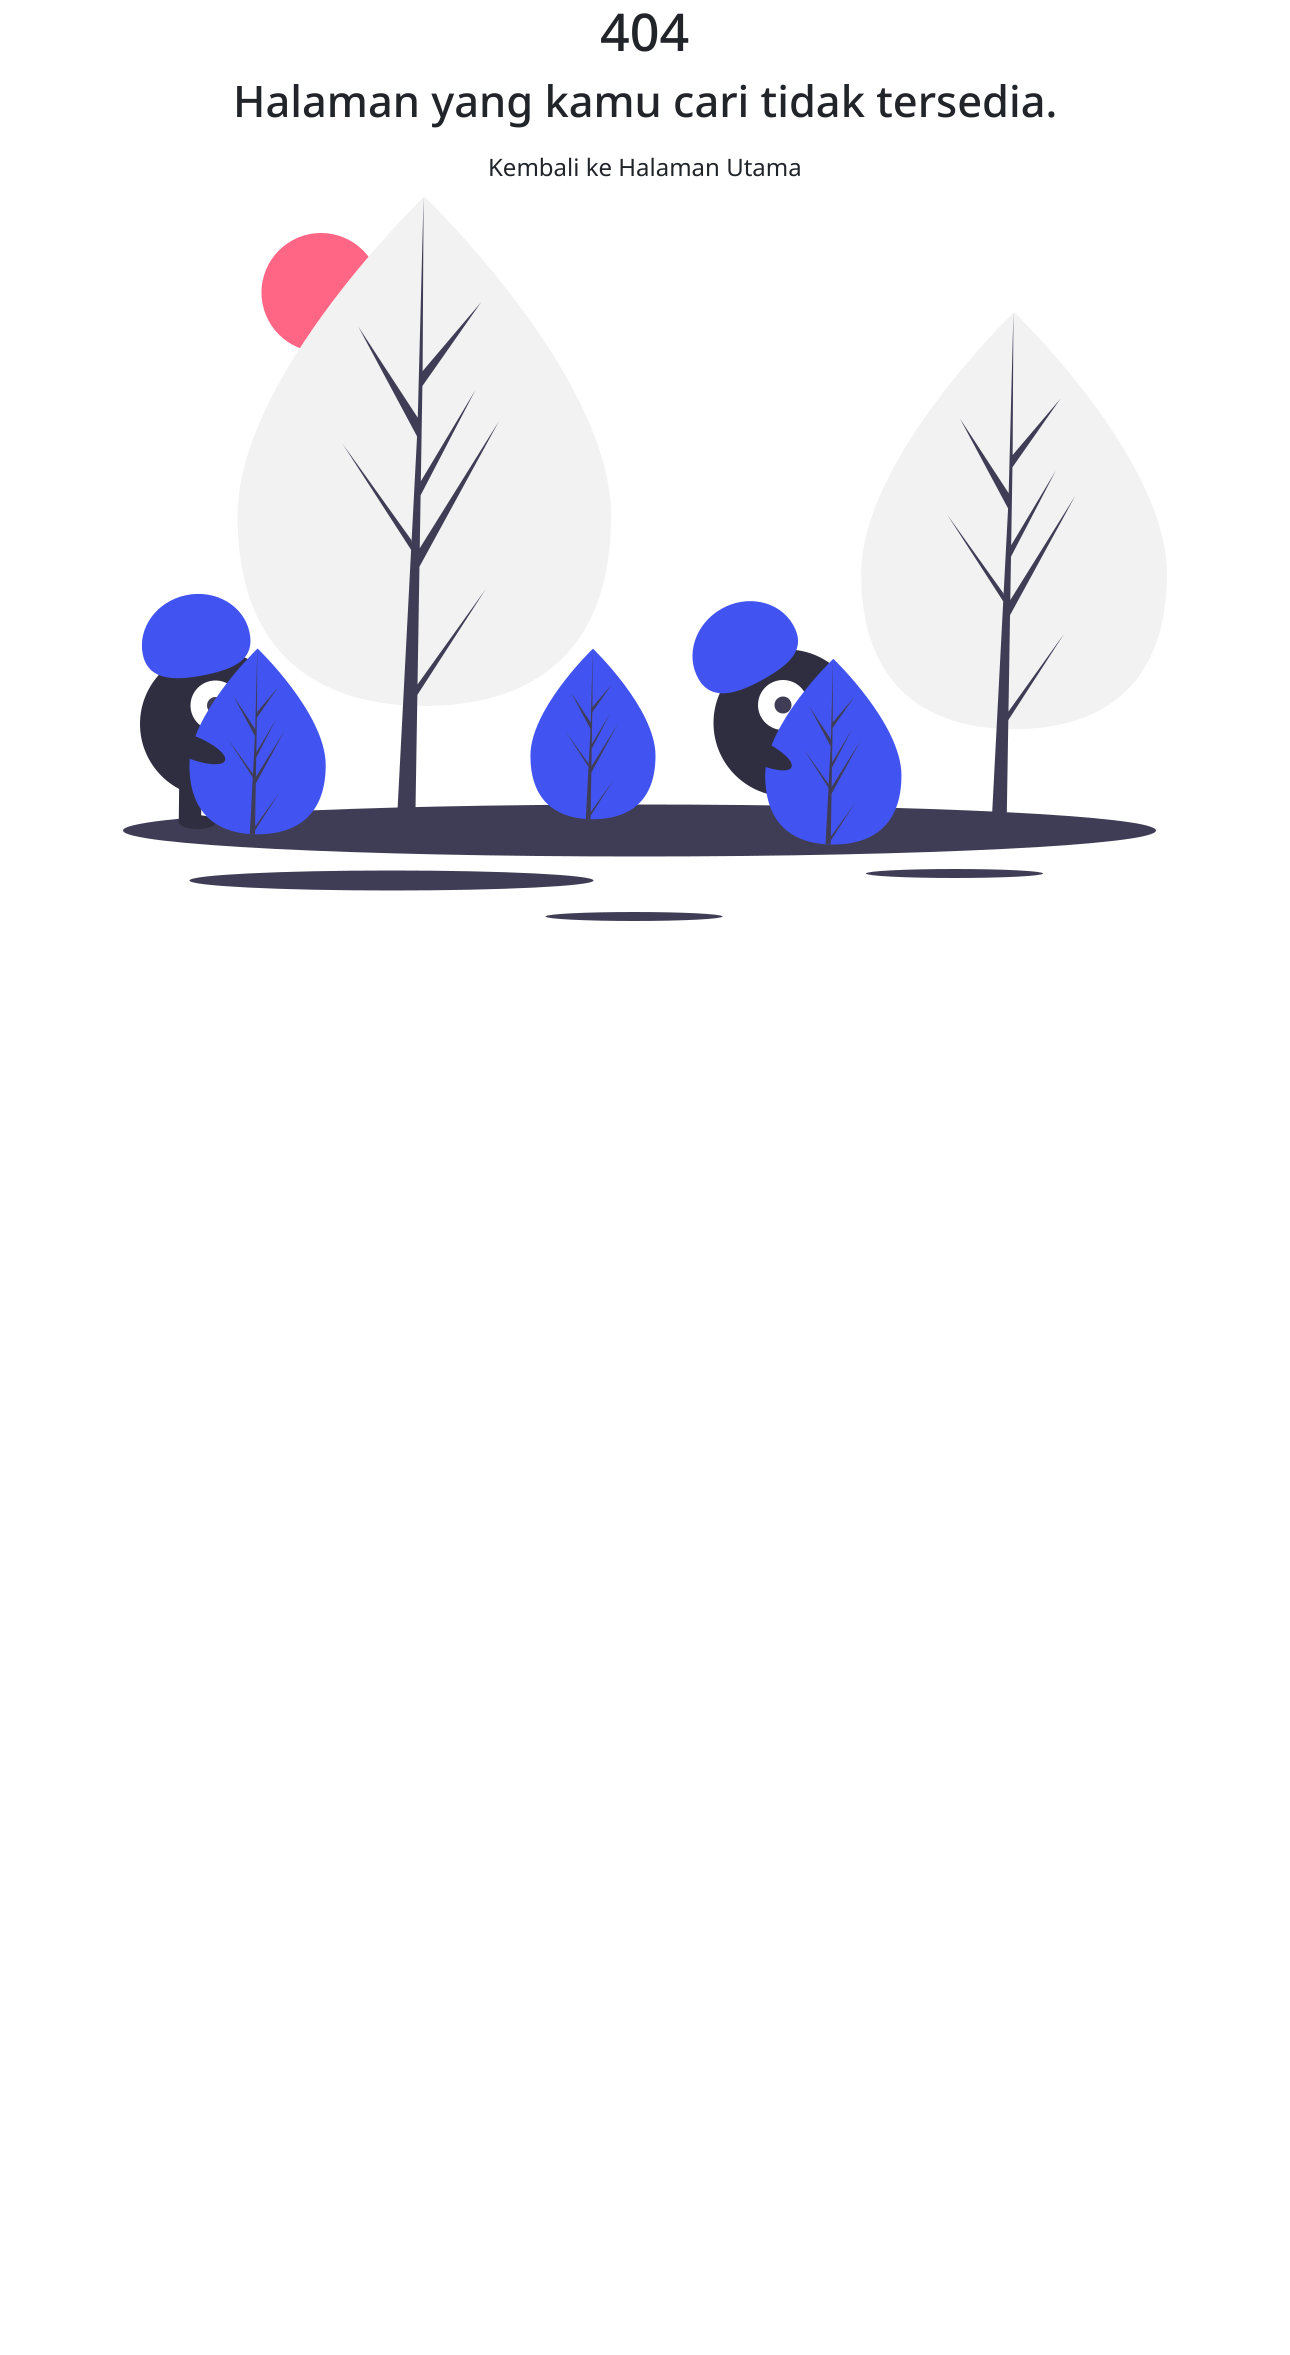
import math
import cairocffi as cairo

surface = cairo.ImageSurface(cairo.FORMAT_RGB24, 1290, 2355)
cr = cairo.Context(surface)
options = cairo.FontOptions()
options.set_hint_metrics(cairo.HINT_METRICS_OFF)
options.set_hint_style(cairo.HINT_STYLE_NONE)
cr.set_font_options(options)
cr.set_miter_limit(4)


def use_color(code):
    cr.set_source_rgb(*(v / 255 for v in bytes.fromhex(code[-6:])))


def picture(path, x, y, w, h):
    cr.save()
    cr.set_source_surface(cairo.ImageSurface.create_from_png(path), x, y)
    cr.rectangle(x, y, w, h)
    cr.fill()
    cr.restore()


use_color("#ffffff")
cr.paint()
cr.select_font_face("Noto Sans Medium")
cr.set_font_size(52)
use_color("#212529")
cr.move_to(600, 51)
cr.show_text("404")
cr.set_font_size(43.4)
cr.move_to(233, 117)
cr.show_text("Halaman yang kamu cari tidak tersedia.")
cr.select_font_face("Noto Sans")
cr.set_font_size(24)
cr.move_to(488, 176)
cr.show_text("Kembali ke Halaman Utama")
picture("img1.png", 123, 197, 1044, 724)
surface.write_to_png("result.png")
